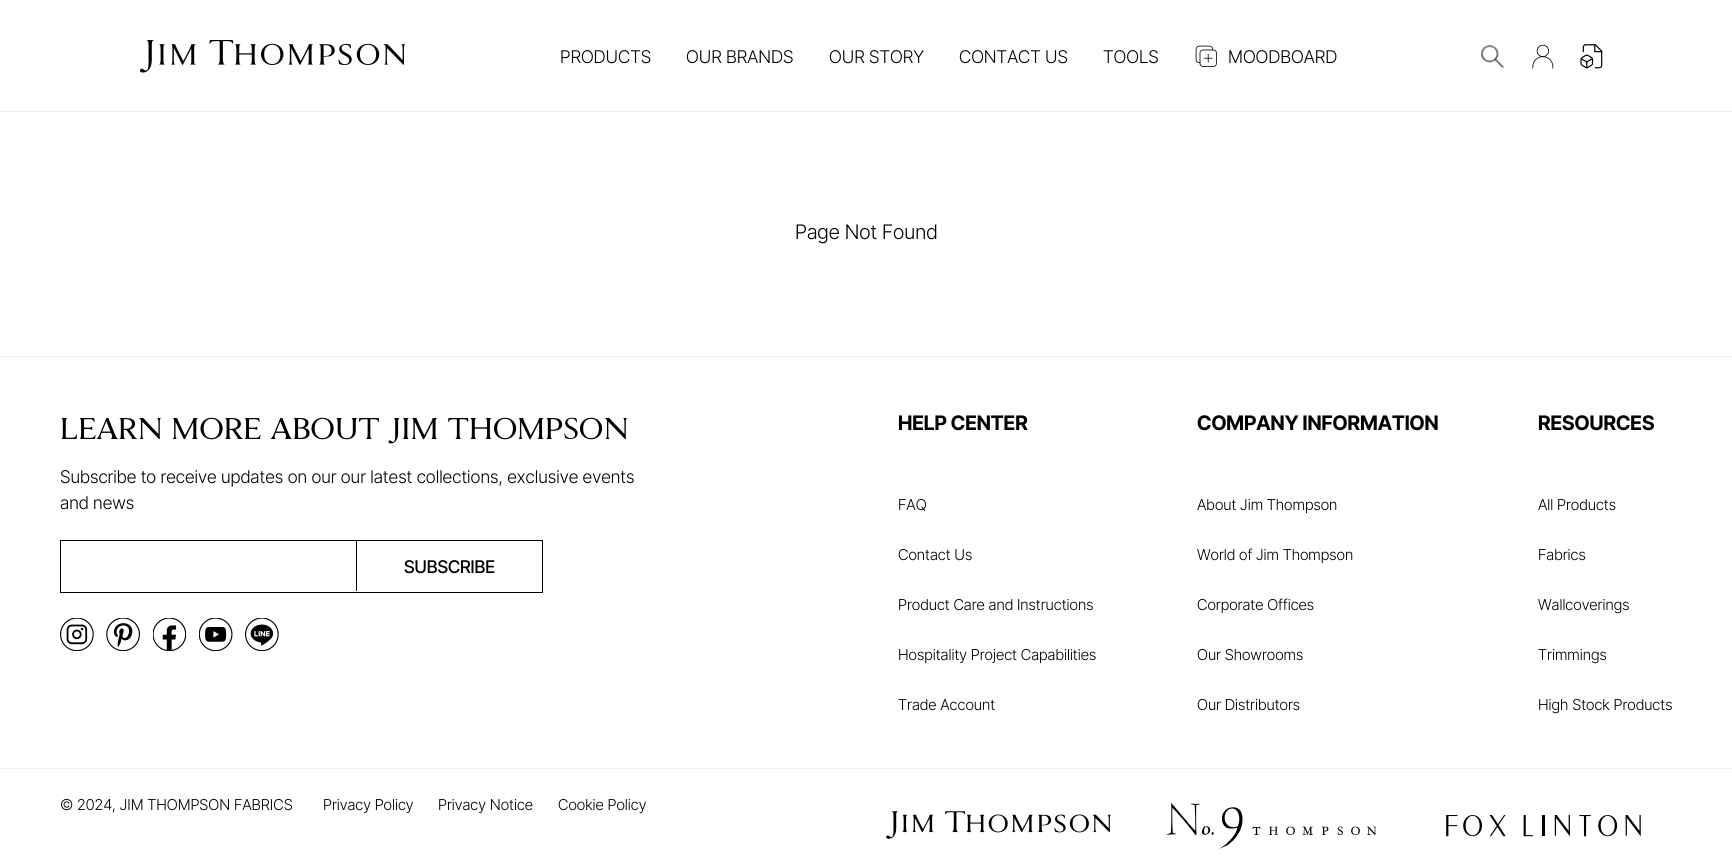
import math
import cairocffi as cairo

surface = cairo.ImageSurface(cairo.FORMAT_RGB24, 1732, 859)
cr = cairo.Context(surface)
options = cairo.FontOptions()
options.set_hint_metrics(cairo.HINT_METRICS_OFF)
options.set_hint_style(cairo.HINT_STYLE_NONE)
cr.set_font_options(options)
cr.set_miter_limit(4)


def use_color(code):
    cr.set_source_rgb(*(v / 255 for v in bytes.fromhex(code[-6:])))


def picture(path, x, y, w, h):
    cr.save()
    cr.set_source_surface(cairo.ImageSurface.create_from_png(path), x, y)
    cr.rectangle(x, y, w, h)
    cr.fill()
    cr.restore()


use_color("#ffffff")
cr.paint()
use_color("#ededed")
cr.rectangle(0, 111, 1732, 1)
cr.fill()
picture("img1.png", 140, 40, 265, 33)
cr.select_font_face("Inter Tight Light")
cr.set_font_size(17.5)
use_color("#000000")
cr.move_to(560, 63)
cr.show_text("PRODUCTS")
cr.move_to(686, 63)
cr.show_text("OUR BRANDS")
cr.move_to(829, 63)
cr.show_text("OUR STORY")
cr.move_to(959, 63)
cr.show_text("CONTACT US")
cr.move_to(1103, 63)
cr.show_text("TOOLS")
picture("img2.png", 1195, 45, 22, 22)
cr.move_to(1228, 63)
cr.show_text("MOODBOARD")
picture("img3.png", 1481, 45, 23, 23)
picture("img4.png", 1532, 44, 22, 25)
picture("img5.png", 1580, 44, 23, 25)
cr.set_font_size(20)
cr.move_to(795, 239)
cr.show_text("Page Not Found")
use_color("#f2f2f2")
cr.rectangle(0, 356, 1732, 1)
cr.fill()
cr.select_font_face("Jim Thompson")
cr.set_font_size(30)
use_color("#000000")
cr.move_to(60, 439)
cr.show_text("LEARN MORE ABOUT JIM THOMPSON")
cr.select_font_face("Inter Tight Light")
cr.set_font_size(17.5)
cr.move_to(60, 483)
cr.show_text("Subscribe to receive updates on our our latest collections, exclusive events")
cr.move_to(60, 509)
cr.show_text("and news")
cr.rectangle(60.5, 540.5, 482, 52)
cr.set_line_width(1)
cr.stroke()
cr.rectangle(356, 541, 1, 50)
cr.fill()
cr.select_font_face("Inter Tight Medium")
cr.move_to(404, 573)
cr.show_text("SUBSCRIBE")
picture("img6.png", 60, 618, 34, 33)
picture("img7.png", 106, 618, 34, 33)
picture("img8.png", 153, 618, 33, 33)
picture("img9.png", 199, 618, 34, 33)
picture("img10.png", 245, 618, 34, 33)
cr.select_font_face("Inter Tight", cairo.FONT_SLANT_NORMAL, cairo.FONT_WEIGHT_BOLD)
cr.set_font_size(20)
cr.move_to(898, 430)
cr.show_text("HELP CENTER")
cr.select_font_face("Inter Tight Light")
cr.set_font_size(15)
cr.move_to(898, 510)
cr.show_text("FAQ")
cr.move_to(898, 560)
cr.show_text("Contact Us")
cr.move_to(898, 610)
cr.show_text("Product Care and Instructions")
cr.move_to(898, 660)
cr.show_text("Hospitality Project Capabilities")
cr.move_to(898, 710)
cr.show_text("Trade Account")
cr.select_font_face("Inter Tight", cairo.FONT_SLANT_NORMAL, cairo.FONT_WEIGHT_BOLD)
cr.set_font_size(20)
cr.move_to(1197, 430)
cr.show_text("COMPANY INFORMATION")
cr.select_font_face("Inter Tight Light")
cr.set_font_size(15)
cr.move_to(1197, 510)
cr.show_text("About Jim Thompson")
cr.move_to(1197, 560)
cr.show_text("World of Jim Thompson")
cr.move_to(1197, 610)
cr.show_text("Corporate Offices")
cr.move_to(1197, 660)
cr.show_text("Our Showrooms")
cr.move_to(1197, 710)
cr.show_text("Our Distributors")
cr.select_font_face("Inter Tight", cairo.FONT_SLANT_NORMAL, cairo.FONT_WEIGHT_BOLD)
cr.set_font_size(20)
cr.move_to(1538, 430)
cr.show_text("RESOURCES")
cr.select_font_face("Inter Tight Light")
cr.set_font_size(15)
cr.move_to(1538, 510)
cr.show_text("All Products")
cr.move_to(1538, 560)
cr.show_text("Fabrics")
cr.move_to(1538, 610)
cr.show_text("Wallcoverings")
cr.move_to(1538, 660)
cr.show_text("Trimmings")
cr.move_to(1538, 710)
cr.show_text("High Stock Products")
use_color("#f2f2f2")
cr.rectangle(0, 768, 1732, 1)
cr.fill()
use_color("#000000")
cr.move_to(60, 810)
cr.show_text("© 2024, JIM THOMPSON FABRICS")
cr.move_to(323, 810)
cr.show_text("Privacy Policy")
cr.move_to(438, 810)
cr.show_text("Privacy Notice")
cr.move_to(558, 810)
cr.show_text("Cookie Policy")
picture("img11.png", 886, 811, 225, 28)
picture("img12.png", 1166, 803, 211, 46)
picture("img13.png", 1446, 815, 195, 22)
surface.write_to_png("result.png")
